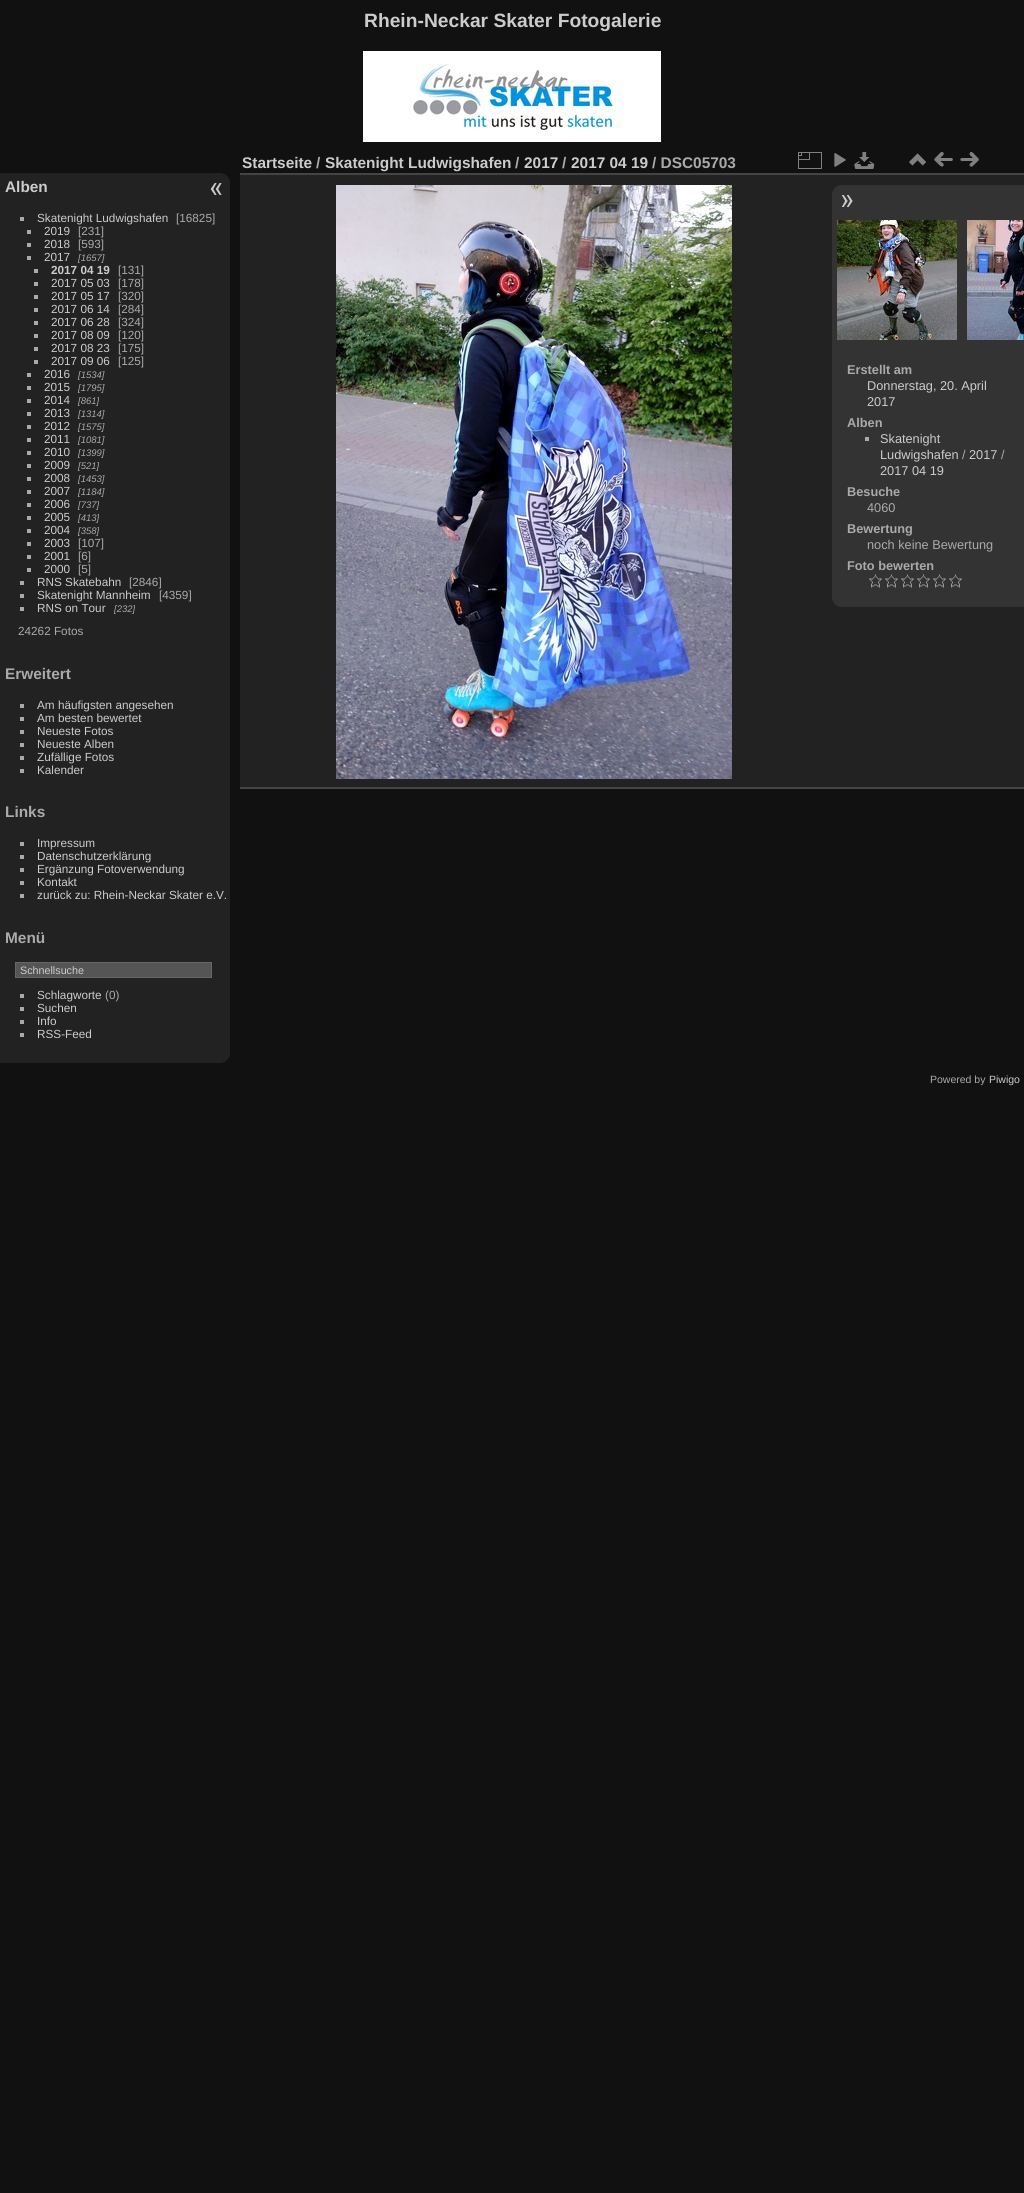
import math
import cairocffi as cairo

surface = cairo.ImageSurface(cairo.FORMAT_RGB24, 1024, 2193)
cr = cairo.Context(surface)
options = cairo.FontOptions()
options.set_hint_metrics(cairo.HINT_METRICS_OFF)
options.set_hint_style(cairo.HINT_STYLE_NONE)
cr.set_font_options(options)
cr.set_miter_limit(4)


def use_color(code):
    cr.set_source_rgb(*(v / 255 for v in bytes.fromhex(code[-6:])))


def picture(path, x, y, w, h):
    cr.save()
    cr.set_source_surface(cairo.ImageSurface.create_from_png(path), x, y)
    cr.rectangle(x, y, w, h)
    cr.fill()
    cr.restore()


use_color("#111111")
cr.paint()
cr.select_font_face("Liberation Sans", cairo.FONT_SLANT_NORMAL, cairo.FONT_WEIGHT_BOLD)
cr.set_font_size(19.25)
use_color("#cccccc")
cr.move_to(364, 27)
cr.show_text("Rhein-Neckar Skater Fotogalerie")
picture("img1.png", 363, 51, 298, 91)
use_color("#222222")
cr.new_path()
cr.move_to(0, 173)
cr.line_to(220, 173)
cr.curve_to(225.5, 173, 230, 177.5, 230, 183)
cr.line_to(230, 1053)
cr.curve_to(230, 1058.5, 225.5, 1063, 220, 1063)
cr.line_to(0, 1063)
cr.close_path()
cr.fill()
cr.set_font_size(15.4)
use_color("#cccccc")
cr.move_to(5, 192)
cr.show_text("Alben")
use_color("#aaaaaa")
cr.rectangle(20, 217, 4, 4)
cr.fill()
cr.select_font_face("Liberation Sans")
cr.set_font_size(11.75)
use_color("#cccccc")
cr.move_to(37, 222)
cr.show_text("Skatenight Ludwigshafen")
use_color("#aaaaaa")
cr.move_to(176, 222)
cr.show_text("[16825]")
cr.rectangle(27, 230, 4, 4)
cr.fill()
use_color("#cccccc")
cr.move_to(44, 235)
cr.show_text("2019")
use_color("#aaaaaa")
cr.move_to(78, 235)
cr.show_text("[231]")
cr.rectangle(27, 243, 4, 4)
cr.fill()
use_color("#cccccc")
cr.move_to(44, 248)
cr.show_text("2018")
use_color("#aaaaaa")
cr.move_to(78, 248)
cr.show_text("[593]")
cr.rectangle(27, 256, 4, 4)
cr.fill()
use_color("#cccccc")
cr.move_to(44, 261)
cr.show_text("2017")
cr.select_font_face("Liberation Sans", cairo.FONT_SLANT_ITALIC)
cr.set_font_size(9.5)
use_color("#aaaaaa")
cr.move_to(78, 261)
cr.show_text("[1657]")
cr.rectangle(34, 269, 4, 4)
cr.fill()
cr.select_font_face("Liberation Sans", cairo.FONT_SLANT_NORMAL, cairo.FONT_WEIGHT_BOLD)
cr.set_font_size(11.75)
use_color("#cccccc")
cr.move_to(51, 274)
cr.show_text("2017 04 19")
cr.select_font_face("Liberation Sans")
use_color("#aaaaaa")
cr.move_to(118, 274)
cr.show_text("[131]")
cr.rectangle(34, 282, 4, 4)
cr.fill()
use_color("#cccccc")
cr.move_to(51, 287)
cr.show_text("2017 05 03")
use_color("#aaaaaa")
cr.move_to(118, 287)
cr.show_text("[178]")
cr.rectangle(34, 295, 4, 4)
cr.fill()
use_color("#cccccc")
cr.move_to(51, 300)
cr.show_text("2017 05 17")
use_color("#aaaaaa")
cr.move_to(118, 300)
cr.show_text("[320]")
cr.rectangle(34, 308, 4, 4)
cr.fill()
use_color("#cccccc")
cr.move_to(51, 313)
cr.show_text("2017 06 14")
use_color("#aaaaaa")
cr.move_to(118, 313)
cr.show_text("[284]")
cr.rectangle(34, 321, 4, 4)
cr.fill()
use_color("#cccccc")
cr.move_to(51, 326)
cr.show_text("2017 06 28")
use_color("#aaaaaa")
cr.move_to(118, 326)
cr.show_text("[324]")
cr.rectangle(34, 334, 4, 4)
cr.fill()
use_color("#cccccc")
cr.move_to(51, 339)
cr.show_text("2017 08 09")
use_color("#aaaaaa")
cr.move_to(118, 339)
cr.show_text("[120]")
cr.rectangle(34, 347, 4, 4)
cr.fill()
use_color("#cccccc")
cr.move_to(51, 352)
cr.show_text("2017 08 23")
use_color("#aaaaaa")
cr.move_to(118, 352)
cr.show_text("[175]")
cr.rectangle(34, 360, 4, 4)
cr.fill()
use_color("#cccccc")
cr.move_to(51, 365)
cr.show_text("2017 09 06")
use_color("#aaaaaa")
cr.move_to(118, 365)
cr.show_text("[125]")
cr.rectangle(27, 373, 4, 4)
cr.fill()
use_color("#cccccc")
cr.move_to(44, 378)
cr.show_text("2016")
cr.select_font_face("Liberation Sans", cairo.FONT_SLANT_ITALIC)
cr.set_font_size(9.5)
use_color("#aaaaaa")
cr.move_to(78, 378)
cr.show_text("[1534]")
cr.rectangle(27, 386, 4, 4)
cr.fill()
cr.select_font_face("Liberation Sans")
cr.set_font_size(11.75)
use_color("#cccccc")
cr.move_to(44, 391)
cr.show_text("2015")
cr.select_font_face("Liberation Sans", cairo.FONT_SLANT_ITALIC)
cr.set_font_size(9.5)
use_color("#aaaaaa")
cr.move_to(78, 391)
cr.show_text("[1795]")
cr.rectangle(27, 399, 4, 4)
cr.fill()
cr.select_font_face("Liberation Sans")
cr.set_font_size(11.75)
use_color("#cccccc")
cr.move_to(44, 404)
cr.show_text("2014")
cr.select_font_face("Liberation Sans", cairo.FONT_SLANT_ITALIC)
cr.set_font_size(9.5)
use_color("#aaaaaa")
cr.move_to(78, 404)
cr.show_text("[861]")
cr.rectangle(27, 412, 4, 4)
cr.fill()
cr.select_font_face("Liberation Sans")
cr.set_font_size(11.75)
use_color("#cccccc")
cr.move_to(44, 417)
cr.show_text("2013")
cr.select_font_face("Liberation Sans", cairo.FONT_SLANT_ITALIC)
cr.set_font_size(9.5)
use_color("#aaaaaa")
cr.move_to(78, 417)
cr.show_text("[1314]")
cr.rectangle(27, 425, 4, 4)
cr.fill()
cr.select_font_face("Liberation Sans")
cr.set_font_size(11.75)
use_color("#cccccc")
cr.move_to(44, 430)
cr.show_text("2012")
cr.select_font_face("Liberation Sans", cairo.FONT_SLANT_ITALIC)
cr.set_font_size(9.5)
use_color("#aaaaaa")
cr.move_to(78, 430)
cr.show_text("[1575]")
cr.rectangle(27, 438, 4, 4)
cr.fill()
cr.select_font_face("Liberation Sans")
cr.set_font_size(11.75)
use_color("#cccccc")
cr.move_to(44, 443)
cr.show_text("2011")
cr.select_font_face("Liberation Sans", cairo.FONT_SLANT_ITALIC)
cr.set_font_size(9.5)
use_color("#aaaaaa")
cr.move_to(78, 443)
cr.show_text("[1081]")
cr.rectangle(27, 451, 4, 4)
cr.fill()
cr.select_font_face("Liberation Sans")
cr.set_font_size(11.75)
use_color("#cccccc")
cr.move_to(44, 456)
cr.show_text("2010")
cr.select_font_face("Liberation Sans", cairo.FONT_SLANT_ITALIC)
cr.set_font_size(9.5)
use_color("#aaaaaa")
cr.move_to(78, 456)
cr.show_text("[1399]")
cr.rectangle(27, 464, 4, 4)
cr.fill()
cr.select_font_face("Liberation Sans")
cr.set_font_size(11.75)
use_color("#cccccc")
cr.move_to(44, 469)
cr.show_text("2009")
cr.select_font_face("Liberation Sans", cairo.FONT_SLANT_ITALIC)
cr.set_font_size(9.5)
use_color("#aaaaaa")
cr.move_to(78, 469)
cr.show_text("[521]")
cr.rectangle(27, 477, 4, 4)
cr.fill()
cr.select_font_face("Liberation Sans")
cr.set_font_size(11.75)
use_color("#cccccc")
cr.move_to(44, 482)
cr.show_text("2008")
cr.select_font_face("Liberation Sans", cairo.FONT_SLANT_ITALIC)
cr.set_font_size(9.5)
use_color("#aaaaaa")
cr.move_to(78, 482)
cr.show_text("[1453]")
cr.rectangle(27, 490, 4, 4)
cr.fill()
cr.select_font_face("Liberation Sans")
cr.set_font_size(11.75)
use_color("#cccccc")
cr.move_to(44, 495)
cr.show_text("2007")
cr.select_font_face("Liberation Sans", cairo.FONT_SLANT_ITALIC)
cr.set_font_size(9.5)
use_color("#aaaaaa")
cr.move_to(78, 495)
cr.show_text("[1184]")
cr.rectangle(27, 503, 4, 4)
cr.fill()
cr.select_font_face("Liberation Sans")
cr.set_font_size(11.75)
use_color("#cccccc")
cr.move_to(44, 508)
cr.show_text("2006")
cr.select_font_face("Liberation Sans", cairo.FONT_SLANT_ITALIC)
cr.set_font_size(9.5)
use_color("#aaaaaa")
cr.move_to(78, 508)
cr.show_text("[737]")
cr.rectangle(27, 516, 4, 4)
cr.fill()
cr.select_font_face("Liberation Sans")
cr.set_font_size(11.75)
use_color("#cccccc")
cr.move_to(44, 521)
cr.show_text("2005")
cr.select_font_face("Liberation Sans", cairo.FONT_SLANT_ITALIC)
cr.set_font_size(9.5)
use_color("#aaaaaa")
cr.move_to(78, 521)
cr.show_text("[413]")
cr.rectangle(27, 529, 4, 4)
cr.fill()
cr.select_font_face("Liberation Sans")
cr.set_font_size(11.75)
use_color("#cccccc")
cr.move_to(44, 534)
cr.show_text("2004")
cr.select_font_face("Liberation Sans", cairo.FONT_SLANT_ITALIC)
cr.set_font_size(9.5)
use_color("#aaaaaa")
cr.move_to(78, 534)
cr.show_text("[358]")
cr.rectangle(27, 542, 4, 4)
cr.fill()
cr.select_font_face("Liberation Sans")
cr.set_font_size(11.75)
use_color("#cccccc")
cr.move_to(44, 547)
cr.show_text("2003")
use_color("#aaaaaa")
cr.move_to(78, 547)
cr.show_text("[107]")
cr.rectangle(27, 555, 4, 4)
cr.fill()
use_color("#cccccc")
cr.move_to(44, 560)
cr.show_text("2001")
use_color("#aaaaaa")
cr.move_to(78, 560)
cr.show_text("[6]")
cr.rectangle(27, 568, 4, 4)
cr.fill()
use_color("#cccccc")
cr.move_to(44, 573)
cr.show_text("2000")
use_color("#aaaaaa")
cr.move_to(78, 573)
cr.show_text("[5]")
cr.rectangle(20, 581, 4, 4)
cr.fill()
use_color("#cccccc")
cr.move_to(37, 586)
cr.show_text("RNS Skatebahn")
use_color("#aaaaaa")
cr.move_to(129, 586)
cr.show_text("[2846]")
cr.rectangle(20, 594, 4, 4)
cr.fill()
use_color("#cccccc")
cr.move_to(37, 599)
cr.show_text("Skatenight Mannheim")
use_color("#aaaaaa")
cr.move_to(159, 599)
cr.show_text("[4359]")
cr.rectangle(20, 607, 4, 4)
cr.fill()
use_color("#cccccc")
cr.move_to(37, 612)
cr.show_text("RNS on Tour")
cr.select_font_face("Liberation Sans", cairo.FONT_SLANT_ITALIC)
cr.set_font_size(9.5)
use_color("#aaaaaa")
cr.move_to(114, 612)
cr.show_text("[232]")
cr.select_font_face("Liberation Sans")
cr.set_font_size(11.75)
cr.move_to(18, 635)
cr.show_text("24262 Fotos")
cr.select_font_face("Liberation Sans", cairo.FONT_SLANT_NORMAL, cairo.FONT_WEIGHT_BOLD)
cr.set_font_size(15.4)
cr.move_to(5, 679)
cr.show_text("Erweitert")
cr.rectangle(20, 704, 4, 4)
cr.fill()
cr.select_font_face("Liberation Sans")
cr.set_font_size(11.75)
use_color("#cccccc")
cr.move_to(37, 709)
cr.show_text("Am häufigsten angesehen")
use_color("#aaaaaa")
cr.rectangle(20, 717, 4, 4)
cr.fill()
use_color("#cccccc")
cr.move_to(37, 722)
cr.show_text("Am besten bewertet")
use_color("#aaaaaa")
cr.rectangle(20, 730, 4, 4)
cr.fill()
use_color("#cccccc")
cr.move_to(37, 735)
cr.show_text("Neueste Fotos")
use_color("#aaaaaa")
cr.rectangle(20, 743, 4, 4)
cr.fill()
use_color("#cccccc")
cr.move_to(37, 748)
cr.show_text("Neueste Alben")
use_color("#aaaaaa")
cr.rectangle(20, 756, 4, 4)
cr.fill()
use_color("#cccccc")
cr.move_to(37, 761)
cr.show_text("Zufällige Fotos")
use_color("#aaaaaa")
cr.rectangle(20, 769, 4, 4)
cr.fill()
use_color("#cccccc")
cr.move_to(37, 774)
cr.show_text("Kalender")
cr.select_font_face("Liberation Sans", cairo.FONT_SLANT_NORMAL, cairo.FONT_WEIGHT_BOLD)
cr.set_font_size(15.4)
use_color("#aaaaaa")
cr.move_to(5, 817)
cr.show_text("Links")
cr.rectangle(20, 842, 4, 4)
cr.fill()
cr.select_font_face("Liberation Sans")
cr.set_font_size(11.75)
use_color("#cccccc")
cr.move_to(37, 847)
cr.show_text("Impressum")
use_color("#aaaaaa")
cr.rectangle(20, 855, 4, 4)
cr.fill()
use_color("#cccccc")
cr.move_to(37, 860)
cr.show_text("Datenschutzerklärung")
use_color("#aaaaaa")
cr.rectangle(20, 868, 4, 4)
cr.fill()
use_color("#cccccc")
cr.move_to(37, 873)
cr.show_text("Ergänzung Fotoverwendung")
use_color("#aaaaaa")
cr.rectangle(20, 881, 4, 4)
cr.fill()
use_color("#cccccc")
cr.move_to(37, 886)
cr.show_text("Kontakt")
use_color("#aaaaaa")
cr.rectangle(20, 894, 4, 4)
cr.fill()
use_color("#cccccc")
cr.move_to(37, 899)
cr.show_text("zurück zu: Rhein-Neckar Skater e.V.")
cr.select_font_face("Liberation Sans", cairo.FONT_SLANT_NORMAL, cairo.FONT_WEIGHT_BOLD)
cr.set_font_size(15.4)
use_color("#aaaaaa")
cr.move_to(5, 943)
cr.show_text("Menü")
use_color("#555555")
cr.rectangle(15.5, 962.5, 196, 15)
cr.fill_preserve()
use_color("#666666")
cr.set_line_width(1)
cr.stroke()
cr.select_font_face("Liberation Sans")
cr.set_font_size(10.75)
use_color("#cccccc")
cr.move_to(20, 974)
cr.show_text("Schnellsuche")
use_color("#aaaaaa")
cr.rectangle(20, 994, 4, 4)
cr.fill()
cr.set_font_size(11.75)
use_color("#cccccc")
cr.move_to(37, 999)
cr.show_text("Schlagworte")
use_color("#aaaaaa")
cr.move_to(105, 999)
cr.show_text("(0)")
cr.rectangle(20, 1007, 4, 4)
cr.fill()
use_color("#cccccc")
cr.move_to(37, 1012)
cr.show_text("Suchen")
use_color("#aaaaaa")
cr.rectangle(20, 1020, 4, 4)
cr.fill()
use_color("#cccccc")
cr.move_to(37, 1025)
cr.show_text("Info")
use_color("#aaaaaa")
cr.rectangle(20, 1033, 4, 4)
cr.fill()
use_color("#cccccc")
cr.move_to(37, 1038)
cr.show_text("RSS-Feed")
use_color("#222222")
cr.rectangle(240, 175, 784, 612)
cr.fill()
use_color("#444444")
cr.rectangle(240, 787, 784, 2)
cr.fill()
cr.rectangle(240, 173, 784, 2)
cr.fill()
cr.select_font_face("Liberation Sans", cairo.FONT_SLANT_NORMAL, cairo.FONT_WEIGHT_BOLD)
cr.set_font_size(15.4)
use_color("#cccccc")
cr.move_to(242, 168)
cr.show_text("Startseite")
use_color("#aaaaaa")
cr.move_to(316, 168)
cr.show_text("/")
use_color("#cccccc")
cr.move_to(325, 168)
cr.show_text("Skatenight Ludwigshafen")
use_color("#aaaaaa")
cr.move_to(515, 168)
cr.show_text("/")
use_color("#cccccc")
cr.move_to(524, 168)
cr.show_text("2017")
use_color("#aaaaaa")
cr.move_to(562, 168)
cr.show_text("/")
use_color("#cccccc")
cr.move_to(571, 168)
cr.show_text("2017 04 19")
use_color("#aaaaaa")
cr.move_to(652, 168)
cr.show_text("/ DSC05703")
picture("img2.png", 798, 152, 24, 17)
picture("img3.png", 834, 153, 12, 14)
picture("img4.png", 854, 152, 21, 17)
picture("img5.png", 909, 153, 17, 13)
picture("img6.png", 934, 152, 19, 15)
picture("img7.png", 960, 152, 19, 15)
picture("img8.png", 336, 185, 396, 594)
use_color("#333333")
cr.new_path()
cr.move_to(842, 185)
cr.line_to(1024, 185)
cr.line_to(1024, 607)
cr.line_to(842, 607)
cr.curve_to(836.5, 607, 832, 602.5, 832, 597)
cr.line_to(832, 195)
cr.curve_to(832, 189.5, 836.5, 185, 842, 185)
cr.close_path()
cr.fill()
picture("img9.png", 841, 195, 12, 12)
picture("img10.png", 837, 220, 120, 120)
picture("img11.png", 967, 220, 57, 120)
cr.set_font_size(12.75)
use_color("#aaaaaa")
cr.move_to(847, 374)
cr.show_text("Erstellt am")
cr.select_font_face("Liberation Sans")
use_color("#cccccc")
cr.move_to(867, 390)
cr.show_text("Donnerstag, 20. April")
cr.move_to(867, 406)
cr.show_text("2017")
cr.select_font_face("Liberation Sans", cairo.FONT_SLANT_NORMAL, cairo.FONT_WEIGHT_BOLD)
use_color("#aaaaaa")
cr.move_to(847, 427)
cr.show_text("Alben")
cr.rectangle(865, 437, 4, 4)
cr.fill()
cr.select_font_face("Liberation Sans")
use_color("#cccccc")
cr.move_to(880, 443)
cr.show_text("Skatenight")
cr.move_to(880, 459)
cr.show_text("Ludwigshafen")
use_color("#aaaaaa")
cr.move_to(962, 459)
cr.show_text("/")
use_color("#cccccc")
cr.move_to(969, 459)
cr.show_text("2017")
use_color("#aaaaaa")
cr.move_to(1001, 459)
cr.show_text("/")
use_color("#cccccc")
cr.move_to(880, 475)
cr.show_text("2017 04 19")
cr.select_font_face("Liberation Sans", cairo.FONT_SLANT_NORMAL, cairo.FONT_WEIGHT_BOLD)
use_color("#aaaaaa")
cr.move_to(847, 496)
cr.show_text("Besuche")
cr.select_font_face("Liberation Sans")
cr.move_to(867, 512)
cr.show_text("4060")
cr.select_font_face("Liberation Sans", cairo.FONT_SLANT_NORMAL, cairo.FONT_WEIGHT_BOLD)
cr.move_to(847, 533)
cr.show_text("Bewertung")
cr.select_font_face("Liberation Sans")
cr.move_to(867, 549)
cr.show_text("noch keine Bewertung")
cr.select_font_face("Liberation Sans", cairo.FONT_SLANT_NORMAL, cairo.FONT_WEIGHT_BOLD)
cr.move_to(847, 570)
cr.show_text("Foto bewerten")
picture("img12.png", 869, 574, 13, 14)
picture("img12.png", 885, 574, 13, 14)
picture("img12.png", 901, 574, 13, 14)
picture("img12.png", 917, 574, 13, 14)
picture("img12.png", 933, 574, 13, 14)
picture("img12.png", 949, 574, 13, 14)
picture("img13.png", 210, 183, 12, 12)
cr.select_font_face("Liberation Sans")
cr.set_font_size(10.5)
cr.move_to(930, 1083)
cr.show_text("Powered by")
use_color("#cccccc")
cr.move_to(989, 1083)
cr.show_text("Piwigo")
surface.write_to_png("result.png")
